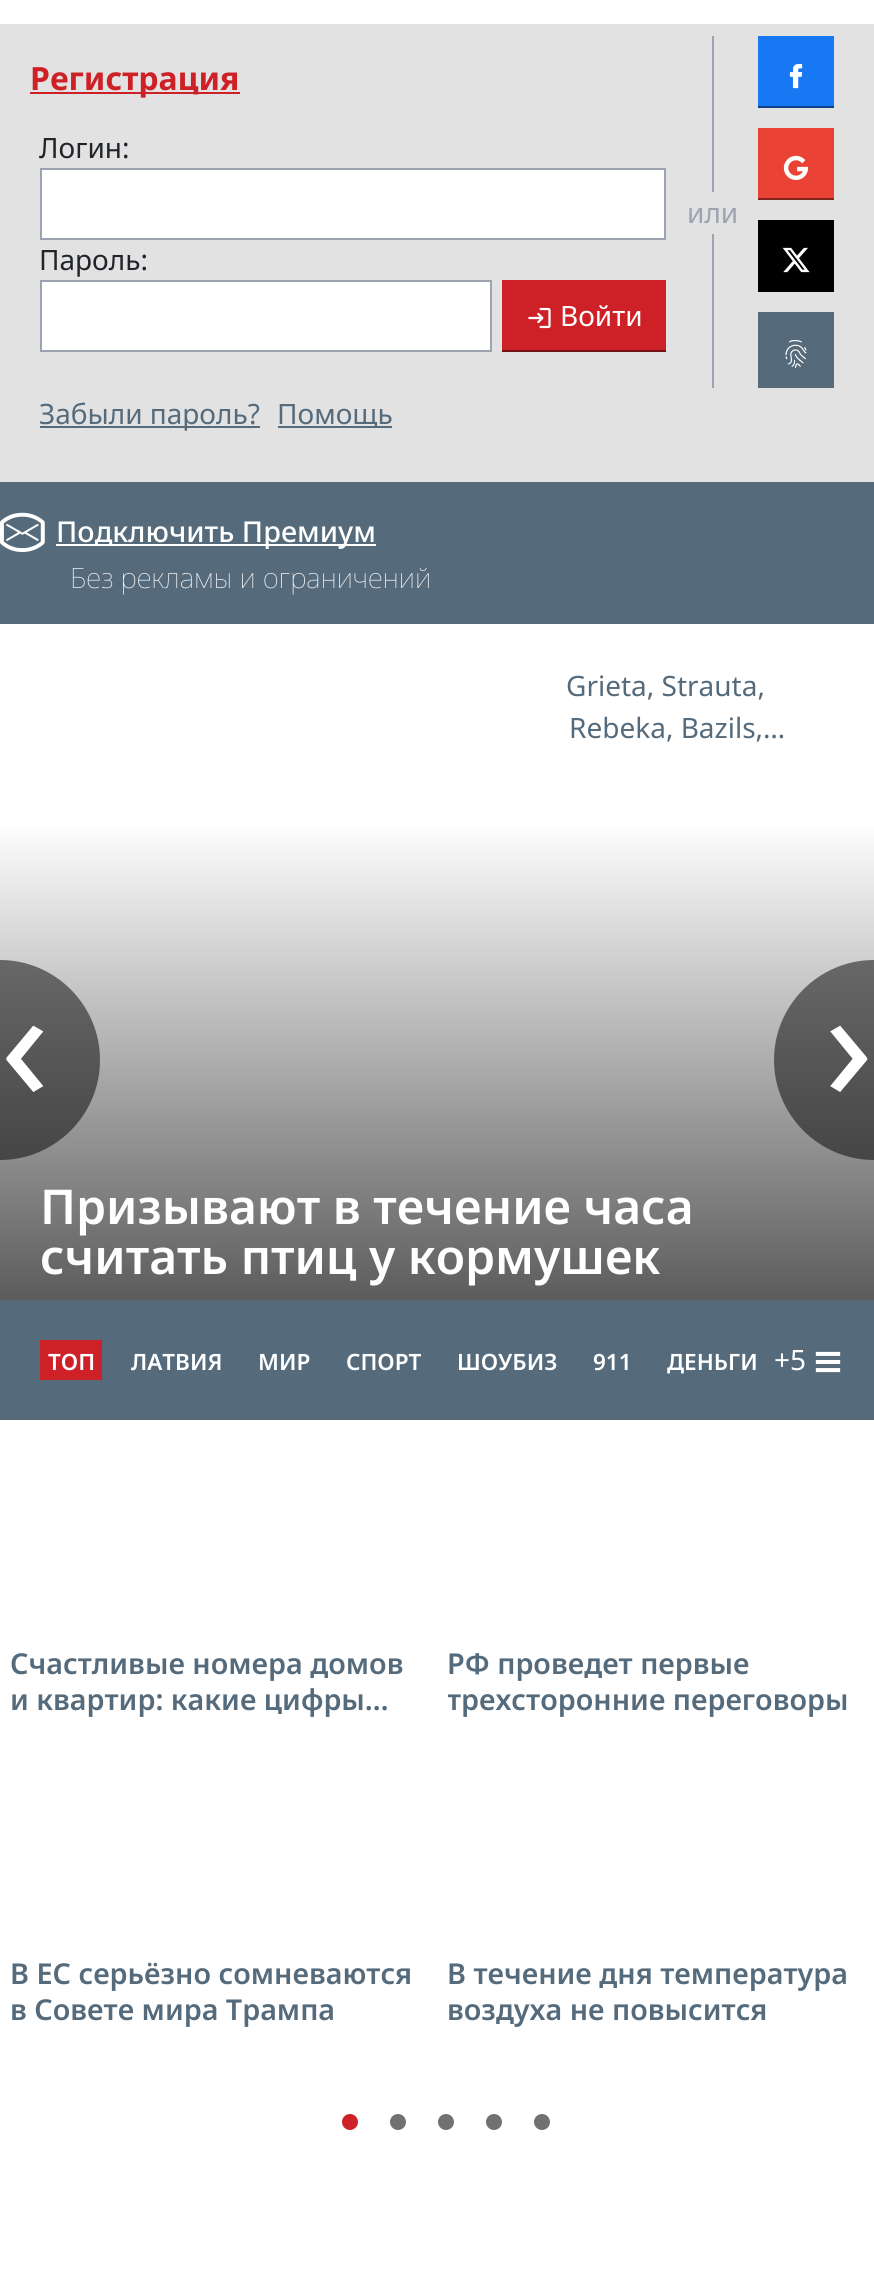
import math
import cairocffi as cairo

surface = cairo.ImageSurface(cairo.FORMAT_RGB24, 874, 2278)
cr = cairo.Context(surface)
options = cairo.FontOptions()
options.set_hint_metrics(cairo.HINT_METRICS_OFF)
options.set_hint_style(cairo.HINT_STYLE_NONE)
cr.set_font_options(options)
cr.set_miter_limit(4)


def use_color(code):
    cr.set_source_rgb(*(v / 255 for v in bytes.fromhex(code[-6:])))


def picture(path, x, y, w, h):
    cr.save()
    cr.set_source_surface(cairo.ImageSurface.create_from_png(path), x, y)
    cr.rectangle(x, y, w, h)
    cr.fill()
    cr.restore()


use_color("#ffffff")
cr.paint()
use_color("#e2e2e2")
cr.rectangle(0, 24, 874, 458)
cr.fill()
use_color("#ce2127")
cr.rectangle(30, 92, 210, 2)
cr.fill()
cr.select_font_face("Noto Sans", cairo.FONT_SLANT_NORMAL, cairo.FONT_WEIGHT_BOLD)
cr.set_font_size(32)
cr.move_to(30, 90)
cr.show_text("Регистрация")
cr.select_font_face("Noto Sans")
cr.set_font_size(28)
use_color("#212529")
cr.move_to(39, 158)
cr.show_text("Логин:")
use_color("#ffffff")
cr.rectangle(41, 169, 624, 70)
cr.fill_preserve()
use_color("#9ea3b1")
cr.stroke()
use_color("#212529")
cr.move_to(39, 270)
cr.show_text("Пароль:")
use_color("#ffffff")
cr.rectangle(41, 281, 450, 70)
cr.fill_preserve()
use_color("#9ea3b1")
cr.stroke()
use_color("#ce2127")
cr.rectangle(502, 280, 164, 70)
cr.fill()
use_color("#711215")
cr.rectangle(502, 350, 164, 2)
cr.fill()
picture("img1.png", 528, 307, 23, 22)
use_color("#ffffff")
cr.move_to(560, 326)
cr.show_text("Войти")
use_color("#556b7c")
cr.rectangle(40, 426, 220, 2)
cr.fill()
cr.move_to(39, 424)
cr.show_text("Забыли пароль?")
cr.rectangle(278, 426, 114, 2)
cr.fill()
cr.move_to(277, 424)
cr.show_text("Помощь")
use_color("#9ea3b1")
cr.rectangle(712, 36, 2, 156)
cr.fill()
cr.move_to(687, 223)
cr.show_text("или")
cr.rectangle(712, 234, 2, 154)
cr.fill()
use_color("#1877f2")
cr.rectangle(758, 36, 76, 70)
cr.fill()
use_color("#0d4185")
cr.rectangle(758, 106, 76, 2)
cr.fill()
picture("img2.png", 789, 63, 14, 26)
use_color("#ea4335")
cr.rectangle(758, 128, 76, 70)
cr.fill()
use_color("#81251d")
cr.rectangle(758, 198, 76, 2)
cr.fill()
picture("img3.png", 783, 155, 26, 25)
use_color("#000000")
cr.rectangle(758, 220, 76, 72)
cr.fill()
picture("img4.png", 782, 247, 28, 26)
use_color("#556b7c")
cr.rectangle(758, 312, 76, 76)
cr.fill()
picture("img5.png", 785, 340, 22, 28)
cr.rectangle(0, 482, 874, 142)
cr.fill()
picture("img6.png", 0, 512, 45, 40)
use_color("#ffffff")
cr.rectangle(56, 544, 320, 2)
cr.fill()
cr.select_font_face("Noto Sans Medium")
cr.set_font_size(28.75)
cr.move_to(56, 542)
cr.show_text("Подключить Премиум")
cr.select_font_face("Noto Sans Thin")
cr.set_font_size(28)
cr.move_to(70, 588)
cr.show_text("Без рекламы и ограничений")
cr.select_font_face("Noto Sans")
use_color("#556b7c")
cr.move_to(566, 696)
cr.show_text("Grieta, Strauta,")
cr.move_to(569, 738)
cr.show_text("Rebeka, Bazils,…")
gradient = cairo.LinearGradient(437, 820, 437, 1420)
gradient.add_color_stop_rgba(0, 1, 1, 1, 1)
gradient.add_color_stop_rgba(1, 0.2, 0.2, 0.2, 1)
cr.set_source(gradient)
cr.rectangle(0, 827, 874, 473)
cr.fill()
cr.set_source_rgba(0, 0, 0, 0.5)
cr.new_path()
cr.move_to(0, 960)
cr.curve_to(55, 960, 100, 1005, 100, 1060)
cr.curve_to(100, 1115, 55, 1160, 0, 1160)
cr.close_path()
cr.fill()
cr.set_font_size(160)
use_color("#ffffff")
cr.move_to(0, 1101)
cr.show_text("‹")
cr.set_source_rgba(0, 0, 0, 0.5)
cr.new_path()
cr.move_to(874, 960)
cr.line_to(874, 1160)
cr.curve_to(819, 1160, 774, 1115, 774, 1060)
cr.curve_to(774, 1005, 819, 960, 874, 960)
cr.close_path()
cr.fill()
use_color("#ffffff")
cr.move_to(824, 1101)
cr.show_text("›")
cr.select_font_face("Noto Sans SemiBold")
cr.set_font_size(48)
cr.move_to(40, 1224)
cr.show_text("Призывают в течение часа")
cr.move_to(40, 1274)
cr.show_text("считать птиц у кормушек")
use_color("#556b7c")
cr.rectangle(0, 1300, 874, 120)
cr.fill()
use_color("#ce2127")
cr.rectangle(40, 1340, 62, 40)
cr.fill()
cr.set_font_size(22.5)
use_color("#ffffff")
cr.move_to(48, 1370)
cr.show_text("ТОП")
cr.move_to(131, 1370)
cr.show_text("ЛАТВИЯ")
cr.move_to(258, 1370)
cr.show_text("МИР")
cr.move_to(346, 1370)
cr.show_text("СПОРТ")
cr.move_to(457, 1370)
cr.show_text("ШОУБИЗ")
cr.move_to(593, 1370)
cr.show_text("911")
cr.move_to(667, 1370)
cr.show_text("ДЕНЬГИ")
cr.select_font_face("Noto Sans")
cr.set_font_size(28)
cr.move_to(774, 1370)
cr.show_text("+5")
picture("img7.png", 815, 1351, 26, 22)
cr.select_font_face("Noto Sans SemiBold")
cr.set_font_size(28.75)
use_color("#556b7c")
cr.move_to(10, 1674)
cr.show_text("Счастливые номера домов")
cr.move_to(10, 1710)
cr.show_text("и квартир: какие цифры…")
cr.move_to(447, 1674)
cr.show_text("РФ проведет первые")
cr.save()
cr.rectangle(448, 1640, 416, 78)
cr.clip()
cr.move_to(447, 1710)
cr.show_text("трехсторонние переговоры")
cr.restore()
cr.move_to(10, 1984)
cr.show_text("В ЕС серьёзно сомневаются")
cr.move_to(10, 2020)
cr.show_text("в Совете мира Трампа")
cr.move_to(447, 1984)
cr.show_text("В течение дня температура")
cr.move_to(447, 2020)
cr.show_text("воздуха не повысится")
use_color("#ce2127")
cr.new_path()
cr.arc(350, 2122, 8, 0, 2 * math.pi)
cr.fill()
use_color("#717171")
cr.arc(398, 2122, 8, 0, 2 * math.pi)
cr.fill()
cr.arc(446, 2122, 8, 0, 2 * math.pi)
cr.fill()
cr.arc(494, 2122, 8, 0, 2 * math.pi)
cr.fill()
cr.arc(542, 2122, 8, 0, 2 * math.pi)
cr.fill()
surface.write_to_png("result.png")
